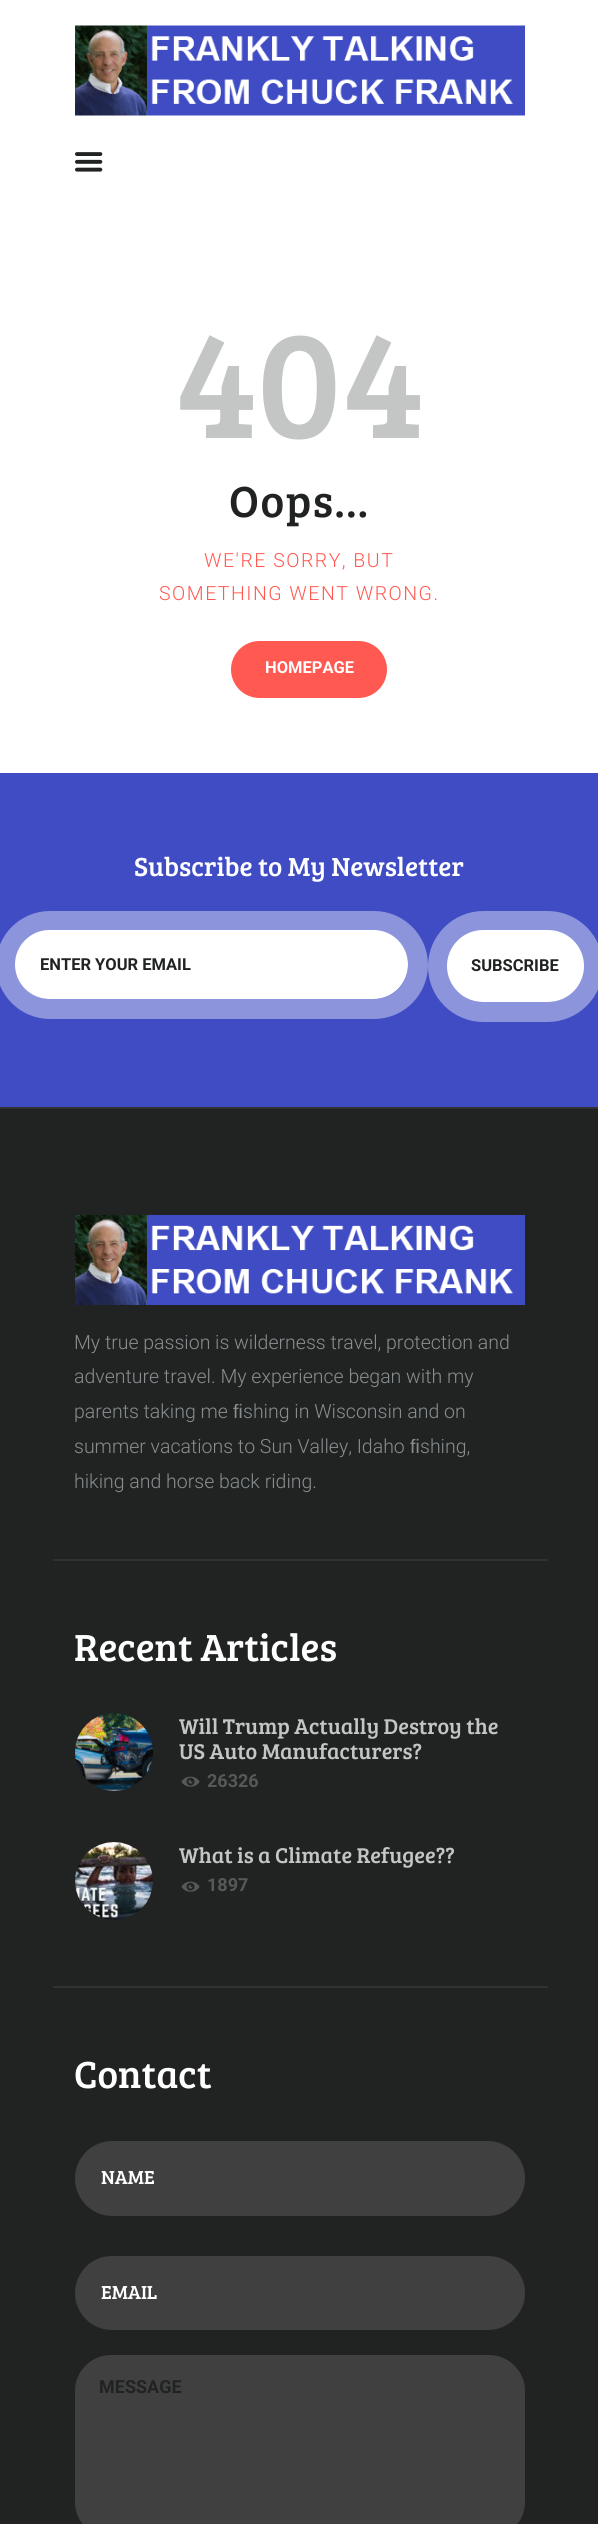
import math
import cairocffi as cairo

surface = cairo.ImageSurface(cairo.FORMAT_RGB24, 598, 2524)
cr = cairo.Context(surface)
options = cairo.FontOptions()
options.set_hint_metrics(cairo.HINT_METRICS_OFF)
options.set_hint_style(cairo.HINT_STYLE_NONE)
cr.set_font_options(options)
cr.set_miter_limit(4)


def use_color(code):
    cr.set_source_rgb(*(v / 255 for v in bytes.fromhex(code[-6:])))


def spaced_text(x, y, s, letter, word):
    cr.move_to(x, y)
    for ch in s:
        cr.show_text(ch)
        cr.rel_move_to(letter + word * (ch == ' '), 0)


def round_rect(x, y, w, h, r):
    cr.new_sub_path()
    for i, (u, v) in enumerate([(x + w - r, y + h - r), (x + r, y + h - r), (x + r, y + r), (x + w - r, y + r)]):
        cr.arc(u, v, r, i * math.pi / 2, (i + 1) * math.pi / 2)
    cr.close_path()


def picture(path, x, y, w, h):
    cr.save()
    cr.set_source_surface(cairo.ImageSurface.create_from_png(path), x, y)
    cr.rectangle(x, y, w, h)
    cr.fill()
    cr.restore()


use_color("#ffffff")
cr.paint()
picture("img1.png", 75, 25, 450, 91)
picture("img2.png", 75, 152, 28, 20)
cr.select_font_face("Bree Serif")
cr.set_font_size(156)
use_color("#c4c6c6")
cr.move_to(174, 438)
cr.show_text("404")
cr.set_font_size(45)
use_color("#212323")
spaced_text(229, 517, "Oops...", 1.5, 0)
cr.select_font_face("Roboto Light")
cr.set_font_size(19.5)
use_color("#ff5951")
spaced_text(204, 567, "WE'RE SORRY, BUT", 1.5, 0)
spaced_text(159, 600, "SOMETHING WENT WRONG.", 1.5, 0)
round_rect(231, 641, 156, 57, 28.5)
cr.fill()
cr.select_font_face("Roboto", cairo.FONT_SLANT_NORMAL, cairo.FONT_WEIGHT_BOLD)
cr.set_font_size(16.5)
use_color("#ffffff")
cr.move_to(265, 673)
cr.show_text("HOMEPAGE")
use_color("#404cc4")
cr.rectangle(0, 773, 598, 334)
cr.fill()
use_color("#313131")
cr.rectangle(0, 1107, 598, 2)
cr.fill()
cr.select_font_face("Bree Serif")
cr.set_font_size(27)
use_color("#ffffff")
cr.move_to(134, 876)
cr.show_text("Subscribe to My Newsletter")
round_rect(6, 921, 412, 88, 44)
use_color("#8c94dc")
cr.set_line_width(20)
cr.stroke()
use_color("#ffffff")
round_rect(15, 930, 393, 69, 34.5)
cr.fill()
cr.select_font_face("Roboto", cairo.FONT_SLANT_NORMAL, cairo.FONT_WEIGHT_BOLD)
cr.set_font_size(16.5)
use_color("#212323")
cr.move_to(40, 970)
cr.show_text("ENTER YOUR EMAIL")
round_rect(438, 921, 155, 91, 45.5)
use_color("#8c94dc")
cr.stroke()
use_color("#ffffff")
round_rect(447, 930, 137, 72, 36)
cr.fill()
use_color("#212323")
cr.move_to(471, 971)
cr.show_text("SUBSCRIBE")
cr.rectangle(0, 1109, 598, 1415)
cr.fill()
picture("img3.png", 75, 1215, 450, 90)
cr.select_font_face("Roboto Light")
cr.set_font_size(19.5)
use_color("#888e8f")
cr.move_to(74, 1349)
cr.show_text("My true passion is wilderness travel, protection and")
cr.move_to(74, 1383)
cr.show_text("adventure travel. My experience began with my")
cr.move_to(74, 1418)
cr.show_text("parents taking me")
cr.select_font_face("Liberation Sans")
cr.move_to(233, 1418)
cr.show_text("ﬁ")
cr.select_font_face("Roboto Light")
cr.move_to(243, 1418)
cr.show_text("shing in Wisconsin and on")
cr.move_to(74, 1453)
cr.show_text("summer vacations to Sun Valley, Idaho")
cr.select_font_face("Liberation Sans")
cr.move_to(410, 1453)
cr.show_text("ﬁ")
cr.select_font_face("Roboto Light")
cr.move_to(420, 1453)
cr.show_text("shing,")
cr.move_to(74, 1488)
cr.show_text("hiking and horse back riding.")
use_color("#313131")
cr.rectangle(53, 1559, 495, 2)
cr.fill()
cr.select_font_face("Bree Serif")
cr.set_font_size(39)
use_color("#ffffff")
cr.move_to(74, 1661)
cr.show_text("Recent Articles")
picture("img4.png", 75, 1713, 78, 78)
cr.set_font_size(22.1)
use_color("#c4c6c6")
cr.move_to(179, 1734)
cr.show_text("Will Trump Actually Destroy the")
cr.move_to(179, 1759)
cr.show_text("US Auto Manufacturers?")
picture("img5.png", 181, 1776, 19, 11)
cr.select_font_face("Roboto", cairo.FONT_SLANT_NORMAL, cairo.FONT_WEIGHT_BOLD)
cr.set_font_size(18)
use_color("#585858")
cr.move_to(207, 1787)
cr.show_text("26326")
picture("img6.png", 75, 1842, 78, 78)
cr.select_font_face("Bree Serif")
cr.set_font_size(22.1)
use_color("#c4c6c6")
cr.move_to(179, 1863)
cr.show_text("What is a Climate Refugee??")
picture("img5.png", 181, 1881, 19, 11)
cr.select_font_face("Roboto", cairo.FONT_SLANT_NORMAL, cairo.FONT_WEIGHT_BOLD)
cr.set_font_size(18)
use_color("#585858")
cr.move_to(207, 1891)
cr.show_text("1897")
use_color("#313131")
cr.rectangle(53, 1986, 495, 2)
cr.fill()
cr.select_font_face("Bree Serif")
cr.set_font_size(39)
use_color("#ffffff")
cr.move_to(74, 2088)
cr.show_text("Contact")
use_color("#404040")
round_rect(76.5, 2142.5, 447, 72, 36)
cr.fill_preserve()
cr.set_line_width(3)
cr.stroke()
cr.set_font_size(19.5)
use_color("#ffffff")
cr.move_to(101, 2184)
cr.show_text("NAME")
use_color("#404040")
round_rect(76.5, 2257.5, 447, 71, 35.5)
cr.fill_preserve()
cr.stroke()
use_color("#ffffff")
cr.move_to(101, 2299)
cr.show_text("EMAIL")
use_color("#404040")
round_rect(76.5, 2356.5, 447, 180, 34.5)
cr.fill_preserve()
cr.stroke()
cr.select_font_face("Roboto", cairo.FONT_SLANT_NORMAL, cairo.FONT_WEIGHT_BOLD)
cr.set_font_size(18)
use_color("#212323")
cr.move_to(99, 2393)
cr.show_text("MESSAGE")
surface.write_to_png("result.png")
